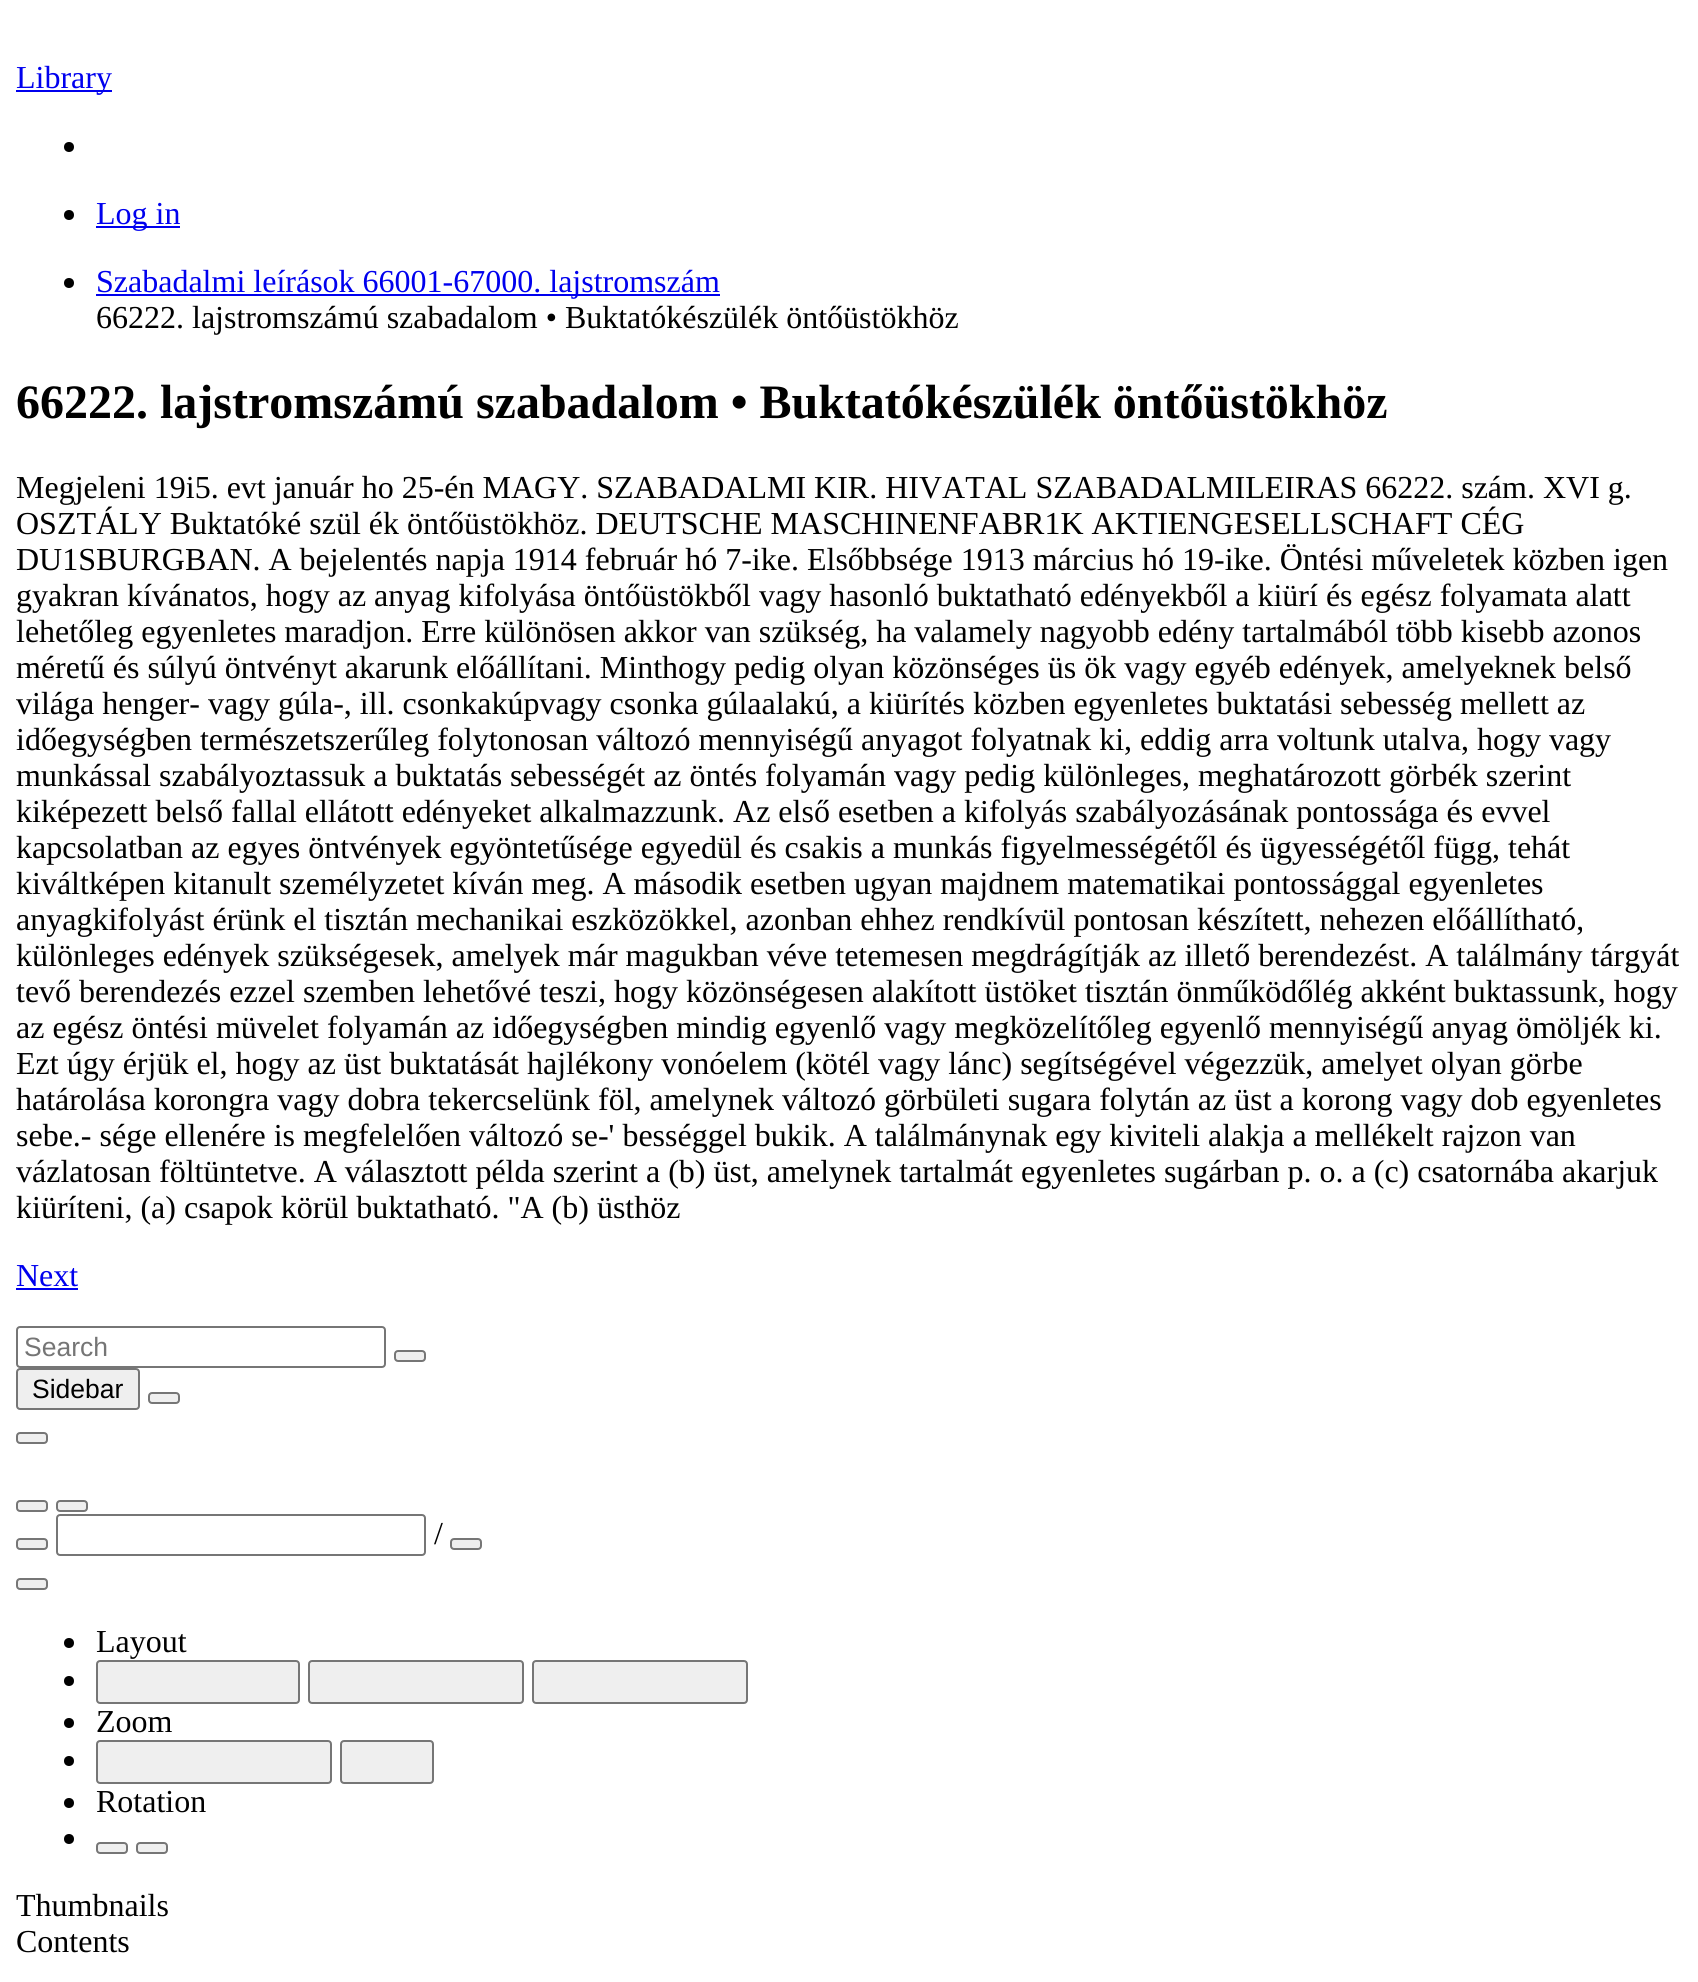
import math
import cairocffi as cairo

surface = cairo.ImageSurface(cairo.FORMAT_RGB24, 1698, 1982)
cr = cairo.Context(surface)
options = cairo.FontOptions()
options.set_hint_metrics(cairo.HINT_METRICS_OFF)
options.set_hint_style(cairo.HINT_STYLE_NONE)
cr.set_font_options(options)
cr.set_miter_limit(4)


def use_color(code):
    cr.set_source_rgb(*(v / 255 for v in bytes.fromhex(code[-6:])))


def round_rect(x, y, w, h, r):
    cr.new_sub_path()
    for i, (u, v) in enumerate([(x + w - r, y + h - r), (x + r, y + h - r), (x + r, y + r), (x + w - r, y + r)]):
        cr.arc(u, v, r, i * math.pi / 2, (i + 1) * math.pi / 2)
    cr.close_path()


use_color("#ffffff")
cr.paint()
use_color("#0000ee")
cr.rectangle(16, 90, 96, 2)
cr.fill()
cr.select_font_face("Liberation Serif")
cr.set_font_size(32)
cr.move_to(16, 88)
cr.show_text("Library")
use_color("#000000")
cr.new_path()
cr.arc(69, 147, 5, 0, 2 * math.pi)
cr.fill()
cr.arc(69, 215, 5, 0, 2 * math.pi)
cr.fill()
use_color("#0000ee")
cr.rectangle(96, 226, 84, 2)
cr.fill()
cr.move_to(96, 224)
cr.show_text("Log in")
use_color("#000000")
cr.new_path()
cr.arc(69, 283, 5, 0, 2 * math.pi)
cr.fill()
use_color("#0000ee")
cr.rectangle(96, 294, 624, 2)
cr.fill()
cr.move_to(96, 292)
cr.show_text("Szabadalmi leírások 66001-67000. lajstromszám")
use_color("#000000")
cr.move_to(96, 328)
cr.show_text("66222. lajstromszámú szabadalom • Buktatókészülék öntőüstökhöz")
cr.select_font_face("Liberation Serif", cairo.FONT_SLANT_NORMAL, cairo.FONT_WEIGHT_BOLD)
cr.set_font_size(48)
cr.move_to(16, 418)
cr.show_text("66222. lajstromszámú szabadalom • Buktatókészülék öntőüstökhöz")
cr.select_font_face("Liberation Serif")
cr.set_font_size(32)
cr.move_to(16, 498)
cr.show_text("Megjeleni 19i5. evt január ho 25-én MAGY. SZABADALMI KIR. HIVATAL SZABADALMILEIRAS 66222. szám. XVI g.")
cr.move_to(16, 534)
cr.show_text("OSZTÁLY Buktatóké szül ék öntőüstökhöz. DEUTSCHE MASCHINENFABR1K AKTIENGESELLSCHAFT CÉG")
cr.move_to(16, 570)
cr.show_text("DU1SBURGBAN. A bejelentés napja 1914 február hó 7-ike. Elsőbbsége 1913 március hó 19-ike. Öntési műveletek közben igen")
cr.move_to(16, 606)
cr.show_text("gyakran kívánatos, hogy az anyag kifolyása öntőüstökből vagy hasonló buktatható edényekből a kiürí és egész folyamata alatt")
cr.move_to(16, 642)
cr.show_text("lehetőleg egyenletes maradjon. Erre különösen akkor van szükség, ha valamely nagyobb edény tartalmából több kisebb azonos")
cr.move_to(16, 678)
cr.show_text("méretű és súlyú öntvényt akarunk előállítani. Minthogy pedig olyan közönséges üs ök vagy egyéb edények, amelyeknek belső")
cr.move_to(16, 714)
cr.show_text("világa henger- vagy gúla-, ill. csonkakúpvagy csonka gúlaalakú, a kiürítés közben egyenletes buktatási sebesség mellett az")
cr.move_to(16, 750)
cr.show_text("időegységben természetszerűleg folytonosan változó mennyiségű anyagot folyatnak ki, eddig arra voltunk utalva, hogy vagy")
cr.move_to(16, 786)
cr.show_text("munkással szabályoztassuk a buktatás sebességét az öntés folyamán vagy pedig különleges, meghatározott görbék szerint")
cr.move_to(16, 822)
cr.show_text("kiképezett belső fallal ellátott edényeket alkalmazzunk. Az első esetben a kifolyás szabályozásának pontossága és evvel")
cr.move_to(16, 858)
cr.show_text("kapcsolatban az egyes öntvények egyöntetűsége egyedül és csakis a munkás figyelmességétől és ügyességétől függ, tehát")
cr.move_to(16, 894)
cr.show_text("kiváltképen kitanult személyzetet kíván meg. A második esetben ugyan majdnem matematikai pontossággal egyenletes")
cr.move_to(16, 930)
cr.show_text("anyagkifolyást érünk el tisztán mechanikai eszközökkel, azonban ehhez rendkívül pontosan készített, nehezen előállítható,")
cr.move_to(16, 966)
cr.show_text("különleges edények szükségesek, amelyek már magukban véve tetemesen megdrágítják az illető berendezést. A találmány tárgyát")
cr.move_to(16, 1002)
cr.show_text("tevő berendezés ezzel szemben lehetővé teszi, hogy közönségesen alakított üstöket tisztán önműködőlég akként buktassunk, hogy")
cr.move_to(16, 1038)
cr.show_text("az egész öntési müvelet folyamán az időegységben mindig egyenlő vagy megközelítőleg egyenlő mennyiségű anyag ömöljék ki.")
cr.move_to(16, 1074)
cr.show_text("Ezt úgy érjük el, hogy az üst buktatását hajlékony vonóelem (kötél vagy lánc) segítségével végezzük, amelyet olyan görbe")
cr.move_to(16, 1110)
cr.show_text("határolása korongra vagy dobra tekercselünk föl, amelynek változó görbületi sugara folytán az üst a korong vagy dob egyenletes")
cr.move_to(16, 1146)
cr.show_text("sebe.- sége ellenére is megfelelően változó se-' bességgel bukik. A találmánynak egy kiviteli alakja a mellékelt rajzon van")
cr.move_to(16, 1182)
cr.show_text("vázlatosan föltüntetve. A választott példa szerint a (b) üst, amelynek tartalmát egyenletes sugárban p. o. a (c) csatornába akarjuk")
cr.move_to(16, 1218)
cr.show_text("kiüríteni, (a) csapok körül buktatható. \"A (b) üsthöz")
use_color("#0000ee")
cr.move_to(16, 1286)
cr.show_text("Next")
cr.rectangle(16, 1288, 62, 2)
cr.fill()
round_rect(17, 1327, 368, 40, 3)
use_color("#767676")
cr.stroke()
cr.select_font_face("Liberation Sans")
cr.set_font_size(26.5)
use_color("#757575")
cr.move_to(24, 1356)
cr.show_text("Search")
use_color("#efefef")
round_rect(395, 1351, 30, 10, 3)
cr.fill_preserve()
use_color("#767676")
cr.stroke()
use_color("#efefef")
round_rect(17, 1369, 122, 40, 3)
cr.fill_preserve()
use_color("#767676")
cr.stroke()
use_color("#000000")
cr.move_to(32, 1398)
cr.show_text("Sidebar")
use_color("#efefef")
round_rect(149, 1393, 30, 10, 3)
cr.fill_preserve()
use_color("#767676")
cr.stroke()
use_color("#efefef")
round_rect(17, 1433, 30, 10, 3)
cr.fill_preserve()
use_color("#767676")
cr.stroke()
use_color("#efefef")
round_rect(17, 1501, 30, 10, 3)
cr.fill_preserve()
use_color("#767676")
cr.stroke()
use_color("#efefef")
round_rect(57, 1501, 30, 10, 3)
cr.fill_preserve()
use_color("#767676")
cr.stroke()
use_color("#efefef")
round_rect(17, 1539, 30, 10, 3)
cr.fill_preserve()
use_color("#767676")
cr.stroke()
round_rect(57, 1515, 368, 40, 3)
cr.stroke()
cr.select_font_face("Liberation Serif")
cr.set_font_size(32)
use_color("#000000")
cr.move_to(434, 1544)
cr.show_text("/")
use_color("#efefef")
round_rect(451, 1539, 30, 10, 3)
cr.fill_preserve()
use_color("#767676")
cr.stroke()
use_color("#efefef")
round_rect(17, 1579, 30, 10, 3)
cr.fill_preserve()
use_color("#767676")
cr.stroke()
use_color("#000000")
cr.arc(69, 1643, 5, 0, 2 * math.pi)
cr.fill()
cr.move_to(96, 1652)
cr.show_text("Layout")
cr.new_path()
cr.arc(69, 1681, 5, 0, 2 * math.pi)
cr.fill()
use_color("#efefef")
round_rect(97, 1661, 202, 42, 3)
cr.fill_preserve()
use_color("#767676")
cr.stroke()
use_color("#efefef")
round_rect(309, 1661, 214, 42, 3)
cr.fill_preserve()
use_color("#767676")
cr.stroke()
use_color("#efefef")
round_rect(533, 1661, 214, 42, 3)
cr.fill_preserve()
use_color("#767676")
cr.stroke()
use_color("#000000")
cr.arc(69, 1723, 5, 0, 2 * math.pi)
cr.fill()
cr.move_to(96, 1732)
cr.show_text("Zoom")
cr.new_path()
cr.arc(69, 1761, 5, 0, 2 * math.pi)
cr.fill()
use_color("#efefef")
round_rect(97, 1741, 234, 42, 3)
cr.fill_preserve()
use_color("#767676")
cr.stroke()
use_color("#efefef")
round_rect(341, 1741, 92, 42, 3)
cr.fill_preserve()
use_color("#767676")
cr.stroke()
use_color("#000000")
cr.arc(69, 1803, 5, 0, 2 * math.pi)
cr.fill()
cr.move_to(96, 1812)
cr.show_text("Rotation")
cr.new_path()
cr.arc(69, 1839, 5, 0, 2 * math.pi)
cr.fill()
use_color("#efefef")
round_rect(97, 1843, 30, 10, 3)
cr.fill_preserve()
use_color("#767676")
cr.stroke()
use_color("#efefef")
round_rect(137, 1843, 30, 10, 3)
cr.fill_preserve()
use_color("#767676")
cr.stroke()
use_color("#000000")
cr.move_to(16, 1916)
cr.show_text("Thumbnails")
cr.move_to(16, 1952)
cr.show_text("Contents")
surface.write_to_png("result.png")
